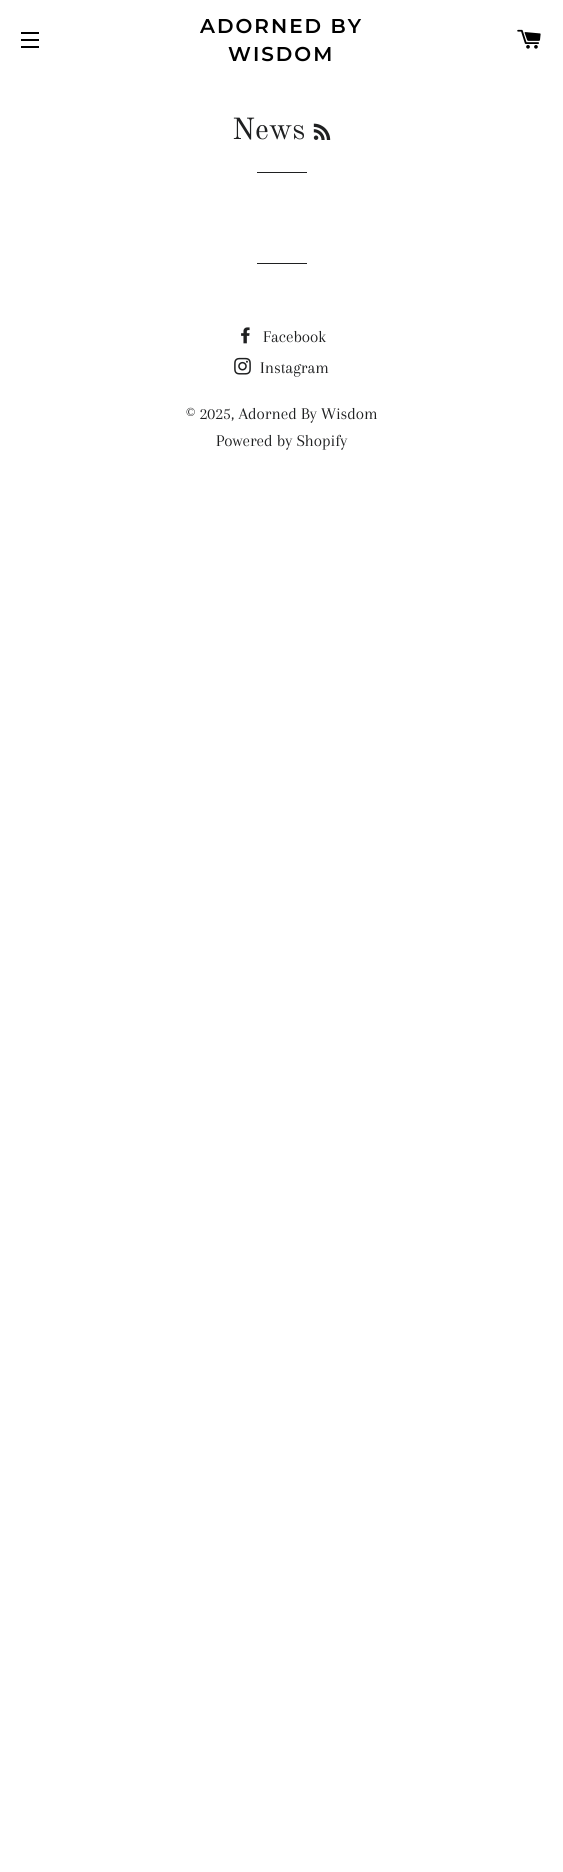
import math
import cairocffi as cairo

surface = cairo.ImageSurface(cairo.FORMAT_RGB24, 563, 1872)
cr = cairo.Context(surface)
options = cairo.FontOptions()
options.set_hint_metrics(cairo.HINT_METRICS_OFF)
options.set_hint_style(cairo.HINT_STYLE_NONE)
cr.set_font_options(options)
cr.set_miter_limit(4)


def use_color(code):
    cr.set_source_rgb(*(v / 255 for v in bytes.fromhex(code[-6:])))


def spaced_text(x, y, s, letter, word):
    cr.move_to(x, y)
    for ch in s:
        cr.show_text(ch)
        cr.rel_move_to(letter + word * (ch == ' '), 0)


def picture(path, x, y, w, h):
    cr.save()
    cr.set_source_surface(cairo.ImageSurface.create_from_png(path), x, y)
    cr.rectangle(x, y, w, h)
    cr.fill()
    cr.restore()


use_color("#ffffff")
cr.paint()
use_color("#000000")
cr.rectangle(21, 32, 18, 2)
cr.fill()
cr.rectangle(21, 39, 18, 2)
cr.fill()
cr.rectangle(21, 46, 18, 2)
cr.fill()
cr.select_font_face("Montserrat SemiBold")
cr.set_font_size(20)
spaced_text(200, 33, "ADORNED BY", 2, 0)
spaced_text(228, 61, "WISDOM", 2, 0)
picture("img1.png", 517, 29, 24, 20)
cr.select_font_face("Old Standard TT")
cr.set_font_size(30)
use_color("#1f2021")
cr.move_to(232, 139)
cr.show_text("News")
picture("img2.png", 313, 123, 18, 17)
cr.rectangle(257, 172, 50, 1)
cr.fill()
cr.rectangle(257, 263, 50, 1)
cr.fill()
picture("img3.png", 241, 327, 9, 17)
cr.select_font_face("Arapey")
cr.set_font_size(17)
cr.move_to(263, 342)
cr.show_text("Facebook")
picture("img4.png", 234, 357, 17, 18)
cr.move_to(260, 373)
cr.show_text("Instagram")
cr.move_to(186, 419)
cr.show_text("© 2025, Adorned By Wisdom")
cr.move_to(216, 446)
cr.show_text("Powered by Shopify")
surface.write_to_png("result.png")
